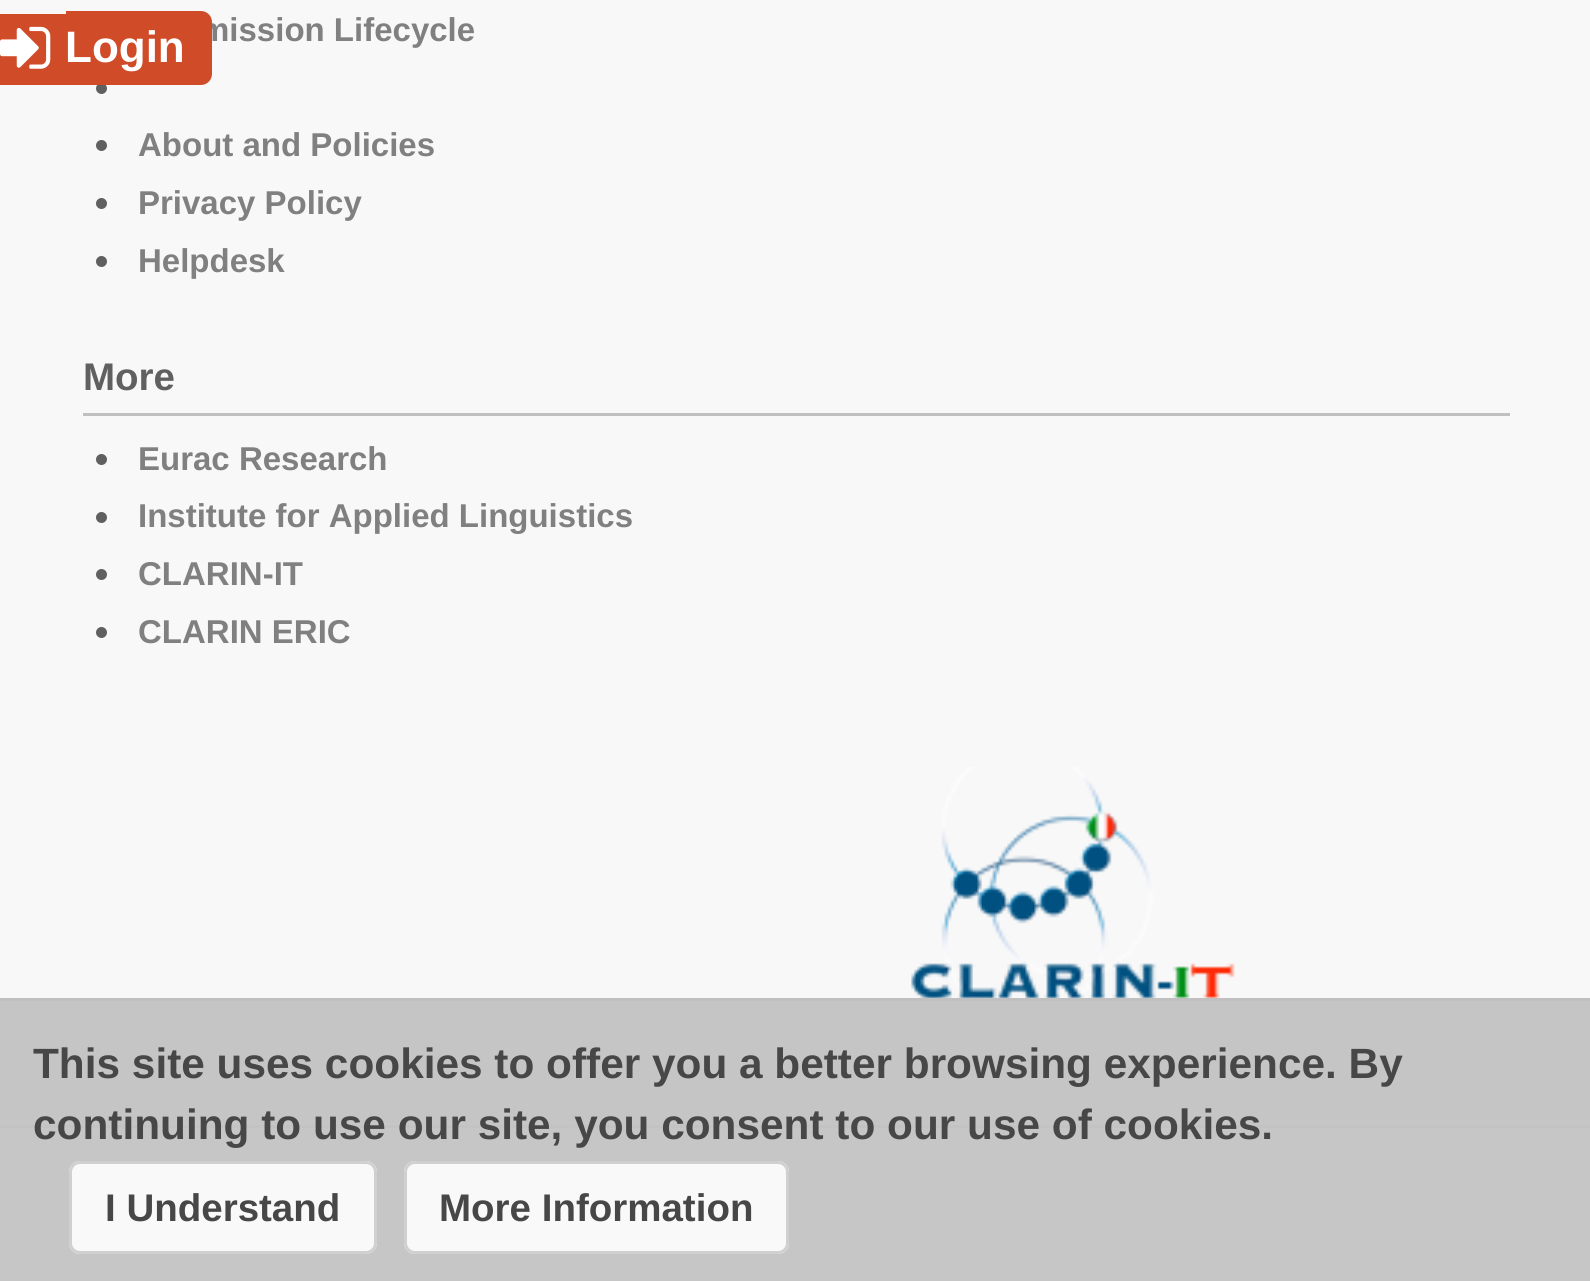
import math
import cairocffi as cairo

surface = cairo.ImageSurface(cairo.FORMAT_RGB24, 1590, 1281)
cr = cairo.Context(surface)
options = cairo.FontOptions()
options.set_hint_metrics(cairo.HINT_METRICS_OFF)
options.set_hint_style(cairo.HINT_STYLE_NONE)
cr.set_font_options(options)
cr.set_miter_limit(4)


def use_color(code):
    cr.set_source_rgb(*(v / 255 for v in bytes.fromhex(code[-6:])))


def round_rect(x, y, w, h, r):
    cr.new_sub_path()
    for i, (u, v) in enumerate([(x + w - r, y + h - r), (x + r, y + h - r), (x + r, y + r), (x + w - r, y + r)]):
        cr.arc(u, v, r, i * math.pi / 2, (i + 1) * math.pi / 2)
    cr.close_path()


def picture(path, x, y, w, h):
    cr.save()
    cr.set_source_surface(cairo.ImageSurface.create_from_png(path), x, y)
    cr.rectangle(x, y, w, h)
    cr.fill()
    cr.restore()


use_color("#ffffff")
cr.paint()
use_color("#f8f8f8")
cr.rectangle(0, 0, 1590, 1122)
cr.fill()
use_color("#e0e0e0")
cr.rectangle(0, 1125, 1590, 3)
cr.fill()
cr.select_font_face("Liberation Sans", cairo.FONT_SLANT_NORMAL, cairo.FONT_WEIGHT_BOLD)
cr.set_font_size(33)
use_color("#808080")
cr.move_to(200, 41)
cr.show_text("mission Lifecycle")
use_color("#606060")
cr.new_path()
cr.arc(101.5, 88.5, 5.5, 0, 2 * math.pi)
cr.fill()
cr.arc(101.5, 145.5, 5.5, 0, 2 * math.pi)
cr.fill()
use_color("#808080")
cr.move_to(138, 156)
cr.show_text("About and Policies")
use_color("#606060")
cr.new_path()
cr.arc(101.5, 203.5, 5.5, 0, 2 * math.pi)
cr.fill()
use_color("#808080")
cr.move_to(138, 214)
cr.show_text("Privacy Policy")
use_color("#606060")
cr.new_path()
cr.arc(101.5, 261.5, 5.5, 0, 2 * math.pi)
cr.fill()
use_color("#808080")
cr.move_to(138, 272)
cr.show_text("Helpdesk")
use_color("#c0c0c0")
cr.rectangle(83, 413, 1427, 3)
cr.fill()
cr.set_font_size(38.5)
use_color("#606060")
cr.move_to(83, 390)
cr.show_text("More")
cr.new_path()
cr.arc(101.5, 459.5, 5.5, 0, 2 * math.pi)
cr.fill()
cr.set_font_size(33)
use_color("#808080")
cr.move_to(138, 470)
cr.show_text("Eurac Research")
use_color("#606060")
cr.new_path()
cr.arc(101.5, 517.5, 5.5, 0, 2 * math.pi)
cr.fill()
use_color("#808080")
cr.move_to(138, 527)
cr.show_text("Institute for Applied Linguistics")
use_color("#606060")
cr.new_path()
cr.arc(101.5, 574.5, 5.5, 0, 2 * math.pi)
cr.fill()
use_color("#808080")
cr.move_to(138, 585)
cr.show_text("CLARIN-IT")
use_color("#606060")
cr.new_path()
cr.arc(101.5, 632.5, 5.5, 0, 2 * math.pi)
cr.fill()
use_color("#808080")
cr.move_to(138, 643)
cr.show_text("CLARIN ERIC")
picture("img1.png", 911, 767, 324, 235)
use_color("#d04c29")
cr.rectangle(0, 14, 66, 71)
cr.fill()
cr.new_path()
cr.move_to(66, 11)
cr.line_to(201, 11)
cr.curve_to(207, 11, 212, 16, 212, 22)
cr.line_to(212, 74)
cr.curve_to(212, 80, 207, 85, 201, 85)
cr.line_to(66, 85)
cr.close_path()
cr.fill()
picture("img2.png", 0, 26, 51, 43)
cr.set_font_size(44)
use_color("#ffffff")
cr.move_to(65, 62)
cr.show_text("Login")
cr.set_source_rgba(0.753, 0.753, 0.753, 0.9)
cr.rectangle(0, 998, 1590, 283)
cr.fill()
cr.rectangle(0, 998, 1590, 3)
cr.fill()
cr.set_font_size(42.35)
use_color("#474747")
cr.move_to(33, 1078)
cr.show_text("This site uses cookies to offer you a better browsing experience. By")
cr.move_to(33, 1139)
cr.show_text("continuing to use our site, you consent to our use of cookies.")
cr.set_source_rgba(1, 1, 1, 0.9)
round_rect(69, 1161, 308, 93, 11)
cr.fill()
round_rect(70.5, 1162.5, 305, 90, 9.5)
cr.set_source_rgba(0.8, 0.8, 0.8, 0.9)
cr.set_line_width(3)
cr.stroke()
cr.set_font_size(38.5)
use_color("#474747")
cr.move_to(105, 1221)
cr.show_text("I Understand")
cr.set_source_rgba(1, 1, 1, 0.9)
round_rect(404, 1161, 385, 93, 11)
cr.fill()
round_rect(405.5, 1162.5, 382, 90, 9.5)
cr.set_source_rgba(0.8, 0.8, 0.8, 0.9)
cr.stroke()
use_color("#474747")
cr.move_to(439, 1221)
cr.show_text("More Information")
surface.write_to_png("result.png")
